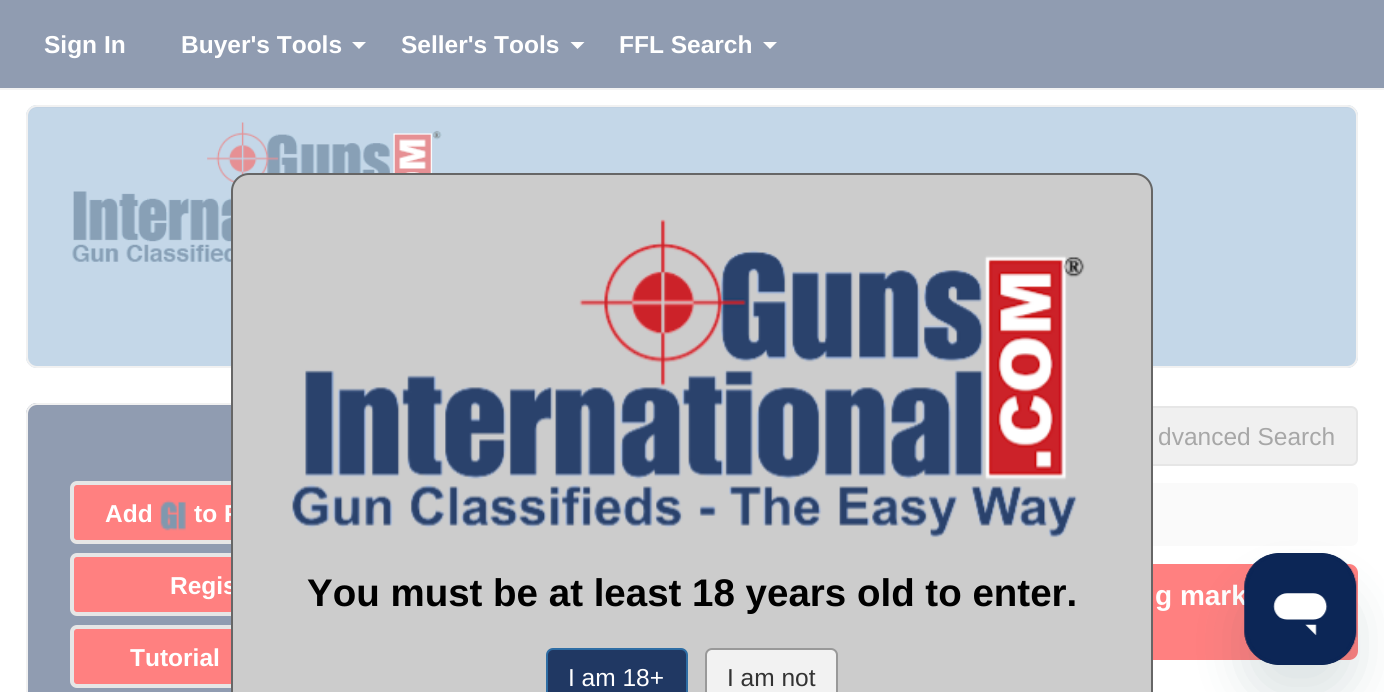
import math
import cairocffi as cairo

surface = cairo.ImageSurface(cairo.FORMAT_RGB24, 1384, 692)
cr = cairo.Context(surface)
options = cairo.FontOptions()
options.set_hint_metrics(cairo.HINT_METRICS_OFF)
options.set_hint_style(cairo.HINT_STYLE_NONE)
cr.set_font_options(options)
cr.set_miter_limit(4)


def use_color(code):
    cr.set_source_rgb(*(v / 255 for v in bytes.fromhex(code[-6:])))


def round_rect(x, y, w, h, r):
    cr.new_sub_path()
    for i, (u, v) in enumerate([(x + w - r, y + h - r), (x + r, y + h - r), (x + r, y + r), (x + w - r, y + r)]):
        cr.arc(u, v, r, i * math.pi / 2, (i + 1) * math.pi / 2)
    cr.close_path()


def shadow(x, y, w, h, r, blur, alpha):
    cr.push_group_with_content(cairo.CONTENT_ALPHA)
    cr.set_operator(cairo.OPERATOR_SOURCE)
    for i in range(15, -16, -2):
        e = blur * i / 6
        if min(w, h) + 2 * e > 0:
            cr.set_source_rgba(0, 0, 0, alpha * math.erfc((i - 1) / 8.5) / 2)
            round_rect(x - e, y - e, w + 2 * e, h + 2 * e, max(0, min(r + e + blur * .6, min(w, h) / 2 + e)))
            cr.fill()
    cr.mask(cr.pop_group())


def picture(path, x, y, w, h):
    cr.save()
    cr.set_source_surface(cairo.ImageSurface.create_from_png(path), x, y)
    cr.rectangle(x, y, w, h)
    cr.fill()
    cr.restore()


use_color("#ffffff")
cr.paint()
use_color("#909cb1")
cr.rectangle(0, 0, 1384, 88)
cr.fill()
use_color("#f3f3f3")
cr.rectangle(0, 88, 1384, 2)
cr.fill()
cr.select_font_face("Liberation Sans", cairo.FONT_SLANT_NORMAL, cairo.FONT_WEIGHT_BOLD)
cr.set_font_size(24.5)
use_color("#ffffff")
cr.move_to(44, 53)
cr.show_text("Sign In")
cr.move_to(181, 53)
cr.show_text("Buyer's Tools")
cr.new_path()
cr.move_to(352, 42)
cr.line_to(366, 42)
cr.line_to(359, 49)
cr.close_path()
cr.fill()
cr.move_to(401, 53)
cr.show_text("Seller's Tools")
cr.new_path()
cr.move_to(570.5, 42)
cr.line_to(584.5, 42)
cr.line_to(577.5, 49)
cr.close_path()
cr.fill()
cr.move_to(619, 53)
cr.show_text("FFL Search")
cr.new_path()
cr.move_to(763, 42)
cr.line_to(777, 42)
cr.line_to(770, 49)
cr.close_path()
cr.fill()
use_color("#c4d7e8")
round_rect(26, 105, 1332, 263, 11)
cr.fill()
use_color("#c1d2e3")
cr.new_path()
cr.move_to(37, 108)
cr.line_to(1348, 108)
cr.curve_to(1352, 108, 1356, 112, 1356, 117)
cr.line_to(1356, 116)
cr.curve_to(1356, 111, 1352, 107, 1347, 107)
cr.line_to(37, 107)
cr.curve_to(32, 107, 28, 111, 28, 116)
cr.line_to(28, 117)
cr.curve_to(28, 112, 32, 108, 37, 108)
cr.close_path()
cr.fill()
round_rect(27, 106, 1330, 261, 10)
use_color("#f1f1f1")
cr.stroke()
picture("img1.png", 72, 122, 370, 140)
use_color("#909cb1")
round_rect(26, 403, 385, 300, 11)
cr.fill()
use_color("#8f9aaf")
cr.new_path()
cr.move_to(37, 406)
cr.line_to(401, 406)
cr.curve_to(406, 406, 410, 410, 410, 415)
cr.line_to(410, 413)
cr.curve_to(410, 408, 406, 404, 401, 404)
cr.line_to(37, 404)
cr.curve_to(32, 404, 28, 408, 28, 413)
cr.line_to(28, 415)
cr.curve_to(28, 410, 32, 406, 37, 406)
cr.close_path()
cr.fill()
round_rect(27, 404, 383, 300, 10)
use_color("#f1f1f1")
cr.stroke()
use_color("#ff8080")
round_rect(72, 483, 294, 59, 5)
cr.fill_preserve()
use_color("#e6e6e6")
cr.set_line_width(4)
cr.stroke()
use_color("#ffffff")
cr.move_to(105, 522)
cr.show_text("Add")
picture("img2.png", 160, 500, 26, 31)
cr.move_to(194, 522)
cr.show_text("to F")
use_color("#ff8080")
round_rect(72, 555, 294, 59, 5)
cr.fill_preserve()
use_color("#e6e6e6")
cr.stroke()
use_color("#ffffff")
cr.move_to(170, 594)
cr.show_text("Regis")
use_color("#ff8080")
round_rect(72, 627, 294, 59, 5)
cr.fill_preserve()
use_color("#e6e6e6")
cr.stroke()
use_color("#ffffff")
cr.move_to(130, 666)
cr.show_text("Tutorial")
use_color("#f0f0f0")
cr.new_path()
cr.move_to(1119, 407)
cr.line_to(1351, 407)
cr.curve_to(1354.5, 407, 1357, 409.5, 1357, 413)
cr.line_to(1357, 459)
cr.curve_to(1357, 462.5, 1354.5, 465, 1351, 465)
cr.line_to(1119, 465)
cr.close_path()
cr.fill_preserve()
use_color("#e6e6e6")
cr.set_line_width(2)
cr.stroke()
cr.select_font_face("Liberation Sans")
use_color("#a7a7a7")
cr.move_to(1158, 445)
cr.show_text("dvanced Search")
use_color("#fafafa")
round_rect(429, 483, 929, 63, 7)
cr.fill()
use_color("#ff8080")
round_rect(429, 564, 929, 96, 9)
cr.fill()
cr.select_font_face("Liberation Sans", cairo.FONT_SLANT_NORMAL, cairo.FONT_WEIGHT_BOLD)
cr.set_font_size(28)
use_color("#ffffff")
cr.move_to(1155, 605)
cr.show_text("g mark")
use_color("#cccccc")
round_rect(232, 174, 920, 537, 17)
cr.fill_preserve()
use_color("#666666")
cr.stroke()
picture("img3.png", 292, 219, 793, 319)
cr.set_font_size(38.5)
use_color("#000000")
cr.move_to(307, 606)
cr.show_text("You must be at least 18 years old to enter.")
use_color("#203863")
round_rect(547, 649, 140, 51, 6)
cr.fill_preserve()
use_color("#2e6da4")
cr.stroke()
cr.select_font_face("Liberation Sans")
cr.set_font_size(24.5)
use_color("#ffffff")
cr.move_to(568, 686)
cr.show_text("I am 18+")
use_color("#f2f2f2")
round_rect(706, 649, 131, 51, 6)
cr.fill_preserve()
use_color("#999999")
cr.stroke()
use_color("#333333")
cr.move_to(727, 686)
cr.show_text("I am not")
use_color("#17494d")
shadow(1244, 588, 112, 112, 35, 26, 0.15)
picture("img4.png", 1244, 553, 113, 112)
surface.write_to_png("result.png")
